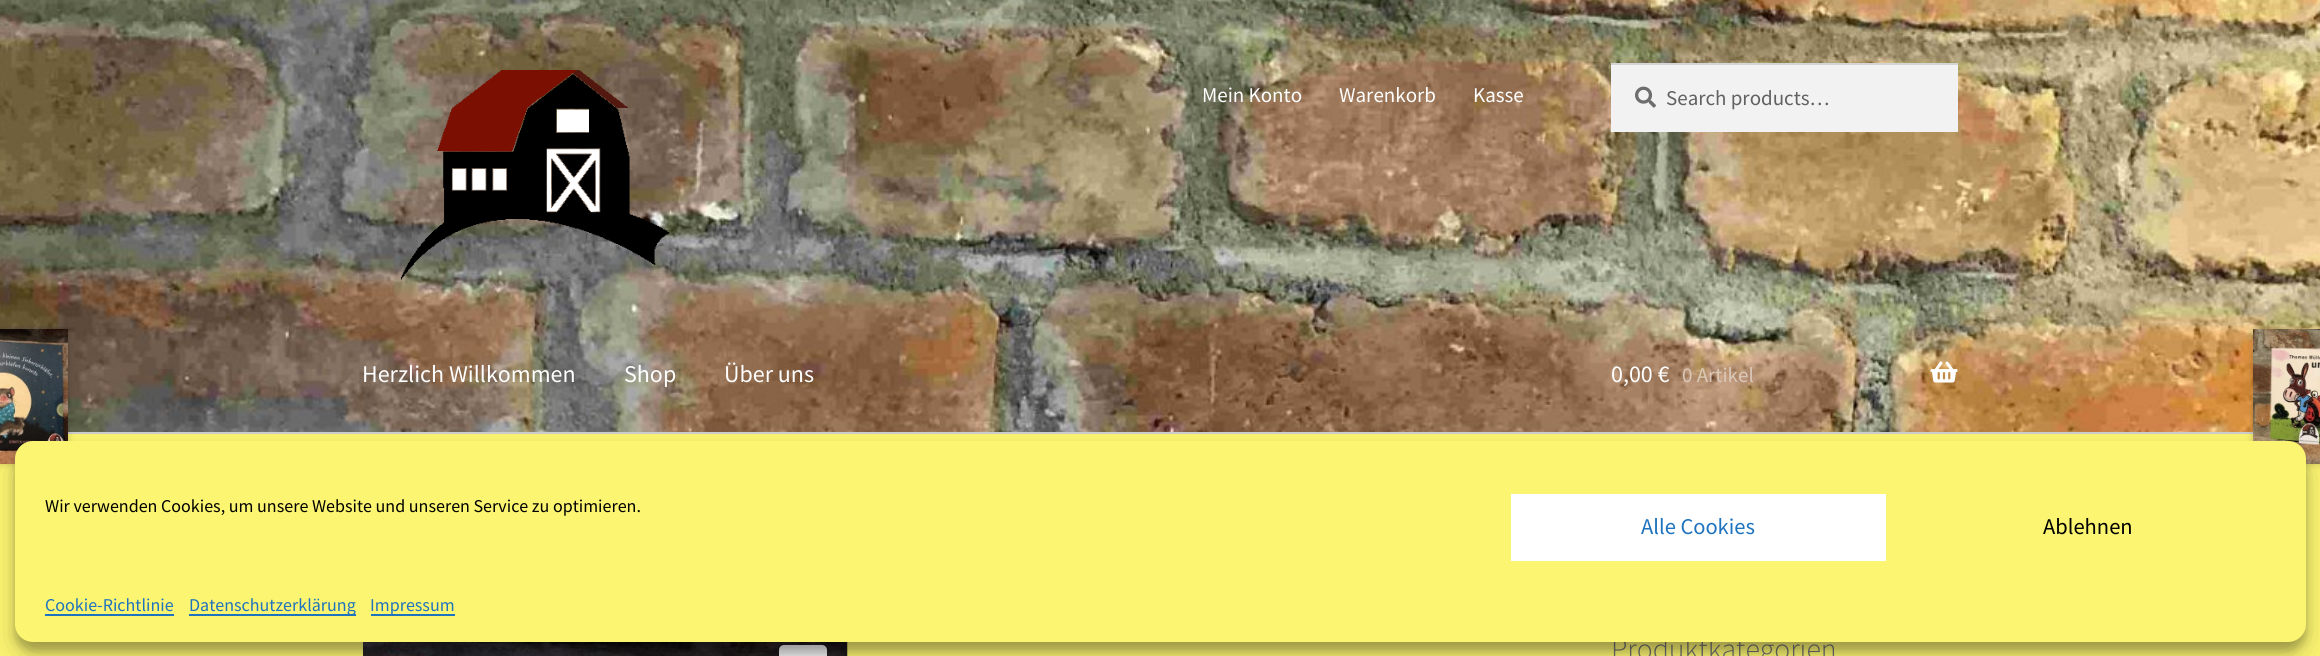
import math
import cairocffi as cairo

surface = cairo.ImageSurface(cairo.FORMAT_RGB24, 2320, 656)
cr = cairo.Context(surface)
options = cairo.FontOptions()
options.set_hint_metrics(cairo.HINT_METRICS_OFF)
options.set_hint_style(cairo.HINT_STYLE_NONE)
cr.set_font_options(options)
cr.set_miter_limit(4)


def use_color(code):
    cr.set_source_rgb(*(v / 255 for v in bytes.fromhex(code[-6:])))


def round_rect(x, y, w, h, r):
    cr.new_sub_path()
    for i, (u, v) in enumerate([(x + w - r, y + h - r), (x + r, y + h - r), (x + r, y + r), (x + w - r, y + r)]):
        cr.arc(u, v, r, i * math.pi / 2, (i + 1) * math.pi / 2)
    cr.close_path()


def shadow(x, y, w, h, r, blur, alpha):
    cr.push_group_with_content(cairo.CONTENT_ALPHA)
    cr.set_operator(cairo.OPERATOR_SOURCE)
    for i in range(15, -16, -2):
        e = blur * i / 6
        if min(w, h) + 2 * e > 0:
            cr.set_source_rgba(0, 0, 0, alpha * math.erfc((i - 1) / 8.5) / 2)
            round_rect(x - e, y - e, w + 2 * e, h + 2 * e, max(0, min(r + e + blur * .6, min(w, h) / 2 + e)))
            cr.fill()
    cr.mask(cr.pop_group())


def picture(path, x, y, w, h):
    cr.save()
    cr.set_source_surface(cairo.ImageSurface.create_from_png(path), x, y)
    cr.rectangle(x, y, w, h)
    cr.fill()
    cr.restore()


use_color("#fcf571")
cr.paint()
picture("img1.png", 0, 0, 2320, 432)
use_color("#cecece")
cr.rectangle(68, 432, 2185, 2)
cr.fill()
picture("img2.png", 401, 70, 269, 210)
cr.select_font_face("Source Sans Pro")
cr.set_font_size(21)
use_color("#ffffff")
cr.move_to(1202, 102)
cr.show_text("Mein Konto")
cr.move_to(1339, 102)
cr.show_text("Warenkorb")
cr.move_to(1473, 102)
cr.show_text("Kasse")
use_color("#f2f2f2")
cr.rectangle(1611, 65, 347, 67)
cr.fill()
picture("img3.png", 1635, 86, 21, 22)
use_color("#d4d4d4")
cr.rectangle(1611, 63, 347, 2)
cr.fill()
use_color("#616161")
cr.move_to(1666, 105)
cr.show_text("Search products…")
cr.set_font_size(24)
use_color("#ffffff")
cr.move_to(362, 382)
cr.show_text("Herzlich Willkommen")
cr.move_to(624, 382)
cr.show_text("Shop")
cr.move_to(724, 382)
cr.show_text("Über uns")
cr.move_to(1611, 382)
cr.show_text("0,00 €")
cr.set_font_size(21)
use_color("#dac8b8")
cr.move_to(1682, 382)
cr.show_text("0 Artikel")
picture("img4.png", 1930, 361, 28, 22)
use_color("#000000")
shadow(-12, 329, 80, 135, 0, 4, 0.2)
picture("img5.png", 0, 329, 68, 135)
shadow(2253, 329, 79, 135, 0, 4, 0.2)
picture("img6.png", 2253, 329, 67, 135)
picture("img7.png", 363, 642, 485, 14)
use_color("#eeeeee")
round_rect(779, 645, 48, 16, 5)
cr.fill()
cr.select_font_face("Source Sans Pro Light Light")
cr.set_font_size(29.75)
use_color("#6d6d6d")
cr.move_to(1611, 659)
cr.show_text("Produktkategorien")
use_color("#000000")
shadow(15, 450, 2291, 201, 18, 4.5, 0.23)
shadow(15, 456, 2291, 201, 18, 15, 0.19)
use_color("#fcf571")
round_rect(15, 441, 2291, 201, 18)
cr.fill()
cr.select_font_face("Source Sans Pro")
cr.set_font_size(18)
use_color("#000000")
cr.move_to(45, 512)
cr.show_text("Wir verwenden Cookies, um unsere Website und unseren Service zu optimieren.")
use_color("#ffffff")
cr.rectangle(1511, 494, 375, 67)
cr.fill()
cr.set_font_size(22.5)
use_color("#1e73be")
cr.move_to(1641, 534)
cr.show_text("Alle Cookies")
use_color("#000000")
cr.move_to(2043, 534)
cr.show_text("Ablehnen")
cr.set_font_size(18)
use_color("#1e73be")
cr.move_to(45, 611)
cr.show_text("Cookie-Richtlinie")
cr.rectangle(45, 614, 129, 2)
cr.fill()
cr.rectangle(189, 614, 167, 2)
cr.fill()
cr.move_to(189, 611)
cr.show_text("Datenschutzerklärung")
cr.rectangle(371, 614, 84, 2)
cr.fill()
cr.move_to(370, 611)
cr.show_text("Impressum")
surface.write_to_png("result.png")
